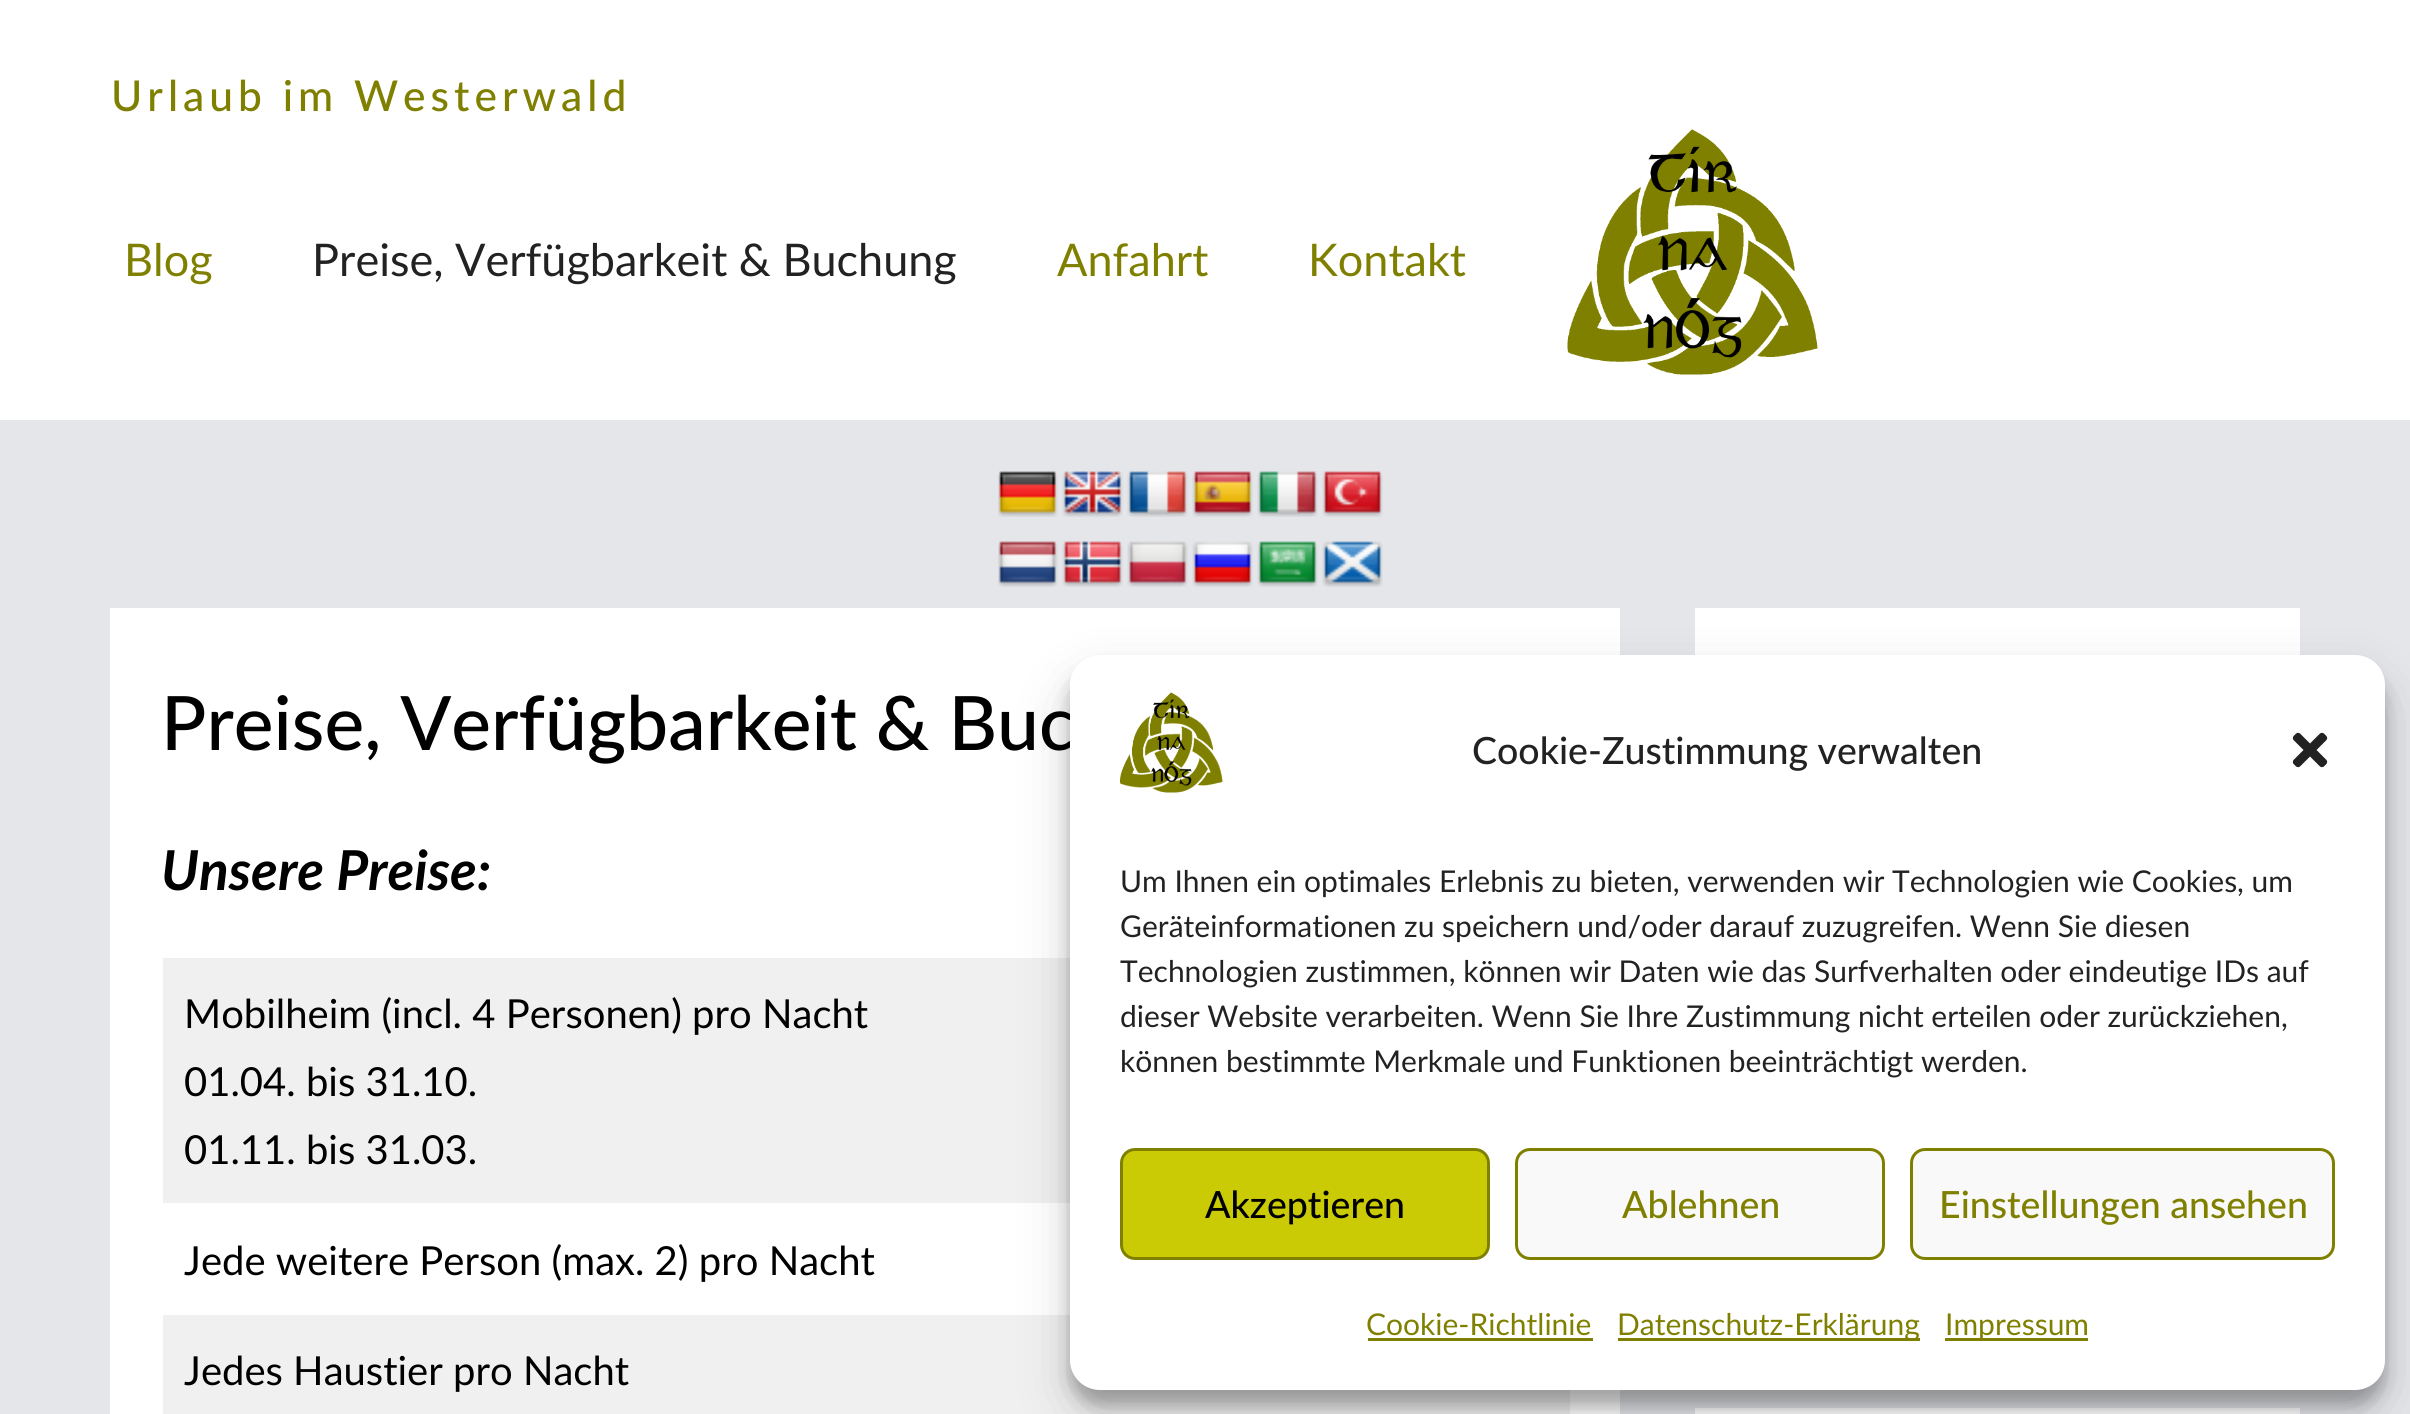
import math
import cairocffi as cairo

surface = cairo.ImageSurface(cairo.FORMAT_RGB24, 2410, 1414)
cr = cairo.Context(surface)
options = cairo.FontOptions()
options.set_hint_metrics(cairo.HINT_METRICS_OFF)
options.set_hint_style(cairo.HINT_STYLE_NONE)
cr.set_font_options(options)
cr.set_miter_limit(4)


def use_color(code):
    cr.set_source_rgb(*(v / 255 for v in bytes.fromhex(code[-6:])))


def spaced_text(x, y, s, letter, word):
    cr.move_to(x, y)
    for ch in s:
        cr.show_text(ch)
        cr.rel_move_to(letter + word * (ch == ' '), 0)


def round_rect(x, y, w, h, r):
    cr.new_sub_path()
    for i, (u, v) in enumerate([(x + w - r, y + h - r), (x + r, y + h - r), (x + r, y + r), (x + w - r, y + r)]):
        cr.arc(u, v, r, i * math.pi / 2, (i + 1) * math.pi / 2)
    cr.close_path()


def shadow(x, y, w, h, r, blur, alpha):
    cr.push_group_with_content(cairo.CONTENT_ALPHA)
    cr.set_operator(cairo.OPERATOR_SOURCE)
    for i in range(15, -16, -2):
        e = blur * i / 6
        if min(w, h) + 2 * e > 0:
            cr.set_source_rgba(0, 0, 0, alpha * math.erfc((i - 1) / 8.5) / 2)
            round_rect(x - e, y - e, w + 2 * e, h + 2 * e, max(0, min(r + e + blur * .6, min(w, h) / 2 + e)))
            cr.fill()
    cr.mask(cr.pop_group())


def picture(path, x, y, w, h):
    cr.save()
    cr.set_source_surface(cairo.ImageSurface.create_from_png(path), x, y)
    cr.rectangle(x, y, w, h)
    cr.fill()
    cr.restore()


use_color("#e5e6ea")
cr.paint()
use_color("#ffffff")
cr.rectangle(0, 0, 2410, 420)
cr.fill()
cr.select_font_face("Lato Medium")
cr.set_font_size(42.5)
use_color("#808000")
spaced_text(111, 111, "Urlaub im Westerwald", 5, 0)
cr.select_font_face("Lato")
cr.set_font_size(45)
cr.move_to(124, 276)
cr.show_text("Blog")
use_color("#222222")
cr.move_to(312, 276)
cr.show_text("Preise, Verfügbarkeit & Buchung")
use_color("#808000")
cr.move_to(1057, 276)
cr.show_text("Anfahrt")
cr.move_to(1308, 276)
cr.show_text("Kontakt")
picture("img1.png", 1567, 129, 251, 246)
picture("img2.png", 998, 471, 60, 46)
picture("img3.png", 1062, 471, 61, 46)
picture("img4.png", 1127, 471, 61, 46)
picture("img5.png", 1192, 471, 61, 46)
picture("img6.png", 1257, 471, 61, 46)
picture("img7.png", 1322, 471, 61, 46)
picture("img8.png", 998, 541, 60, 46)
picture("img9.png", 1062, 541, 61, 46)
picture("img10.png", 1127, 541, 61, 46)
picture("img11.png", 1192, 541, 61, 46)
picture("img12.png", 1257, 541, 61, 46)
picture("img13.png", 1322, 541, 61, 46)
use_color("#ffffff")
cr.rectangle(110, 608, 1510, 806)
cr.fill()
cr.select_font_face("Lato Medium")
cr.set_font_size(75)
use_color("#000000")
cr.move_to(161, 750)
cr.show_text("Preise, Verfügbarkeit & Buc")
cr.select_font_face("Lato", cairo.FONT_SLANT_ITALIC, cairo.FONT_WEIGHT_BOLD)
cr.set_font_size(55)
cr.move_to(161, 890)
cr.show_text("Unsere Preise:")
use_color("#f0f0f0")
cr.rectangle(163, 958, 907, 245)
cr.fill()
cr.select_font_face("Lato")
cr.set_font_size(40)
use_color("#000000")
cr.move_to(184, 1028)
cr.show_text("Mobilheim (incl. 4 Personen) pro Nacht")
cr.move_to(184, 1096)
cr.show_text("01.04. bis 31.10.")
cr.move_to(184, 1164)
cr.show_text("01.11. bis 31.03.")
cr.move_to(184, 1275)
cr.show_text("Jede weitere Person (max. 2) pro Nacht")
use_color("#f0f0f0")
cr.rectangle(163, 1315, 1407, 99)
cr.fill()
use_color("#000000")
cr.move_to(184, 1385)
cr.show_text("Jedes Haustier pro Nacht")
use_color("#ffffff")
cr.rectangle(1695, 608, 605, 47)
cr.fill()
cr.rectangle(1695, 1408, 605, 6)
cr.fill()
use_color("#000000")
shadow(1070, 670, 1315, 735, 30, 7.5, 0.23)
shadow(1070, 680, 1315, 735, 30, 25, 0.19)
use_color("#ffffff")
round_rect(1070, 655, 1315, 735, 30)
cr.fill()
picture("img14.png", 1120, 692, 103, 101)
cr.select_font_face("Lato Medium")
cr.set_font_size(37.5)
use_color("#222222")
cr.move_to(1472, 764)
cr.show_text("Cookie-Zustimmung verwalten")
picture("img15.png", 2292, 732, 36, 36)
cr.select_font_face("Lato")
cr.set_font_size(30)
cr.move_to(1120, 892)
cr.show_text("Um Ihnen ein optimales Erlebnis zu bieten, verwenden wir Technologien wie Cookies, um")
cr.move_to(1120, 937)
cr.show_text("Geräteinformationen zu speichern und/oder darauf zuzugreifen. Wenn Sie diesen")
cr.move_to(1120, 982)
cr.show_text("Technologien zustimmen, können wir Daten wie das Surfverhalten oder eindeutige IDs auf")
cr.move_to(1120, 1027)
cr.show_text("dieser Website verarbeiten. Wenn Sie Ihre Zustimmung nicht erteilen oder zurückziehen,")
cr.move_to(1120, 1072)
cr.show_text("können bestimmte Merkmale und Funktionen beeinträchtigt werden.")
use_color("#cbcb05")
round_rect(1121.5, 1149.5, 367, 109, 13.5)
cr.fill_preserve()
use_color("#808000")
cr.set_line_width(3)
cr.stroke()
cr.select_font_face("Lato Medium")
cr.set_font_size(37.5)
use_color("#000000")
cr.move_to(1205, 1218)
cr.show_text("Akzeptieren")
use_color("#f9f9f9")
round_rect(1516.5, 1149.5, 367, 109, 13.5)
cr.fill_preserve()
use_color("#808000")
cr.stroke()
cr.move_to(1622, 1218)
cr.show_text("Ablehnen")
use_color("#f9f9f9")
round_rect(1911.5, 1149.5, 422, 109, 13.5)
cr.fill_preserve()
use_color("#808000")
cr.stroke()
cr.move_to(1939, 1218)
cr.show_text("Einstellungen ansehen")
cr.select_font_face("Lato")
cr.set_font_size(30)
cr.move_to(1366, 1335)
cr.show_text("Cookie-Richtlinie")
cr.rectangle(1368, 1338, 225, 3)
cr.fill()
cr.rectangle(1618, 1338, 302, 3)
cr.fill()
cr.move_to(1617, 1335)
cr.show_text("Datenschutz-Erklärung")
cr.rectangle(1945, 1338, 143, 3)
cr.fill()
cr.move_to(1945, 1335)
cr.show_text("Impressum")
surface.write_to_png("result.png")
